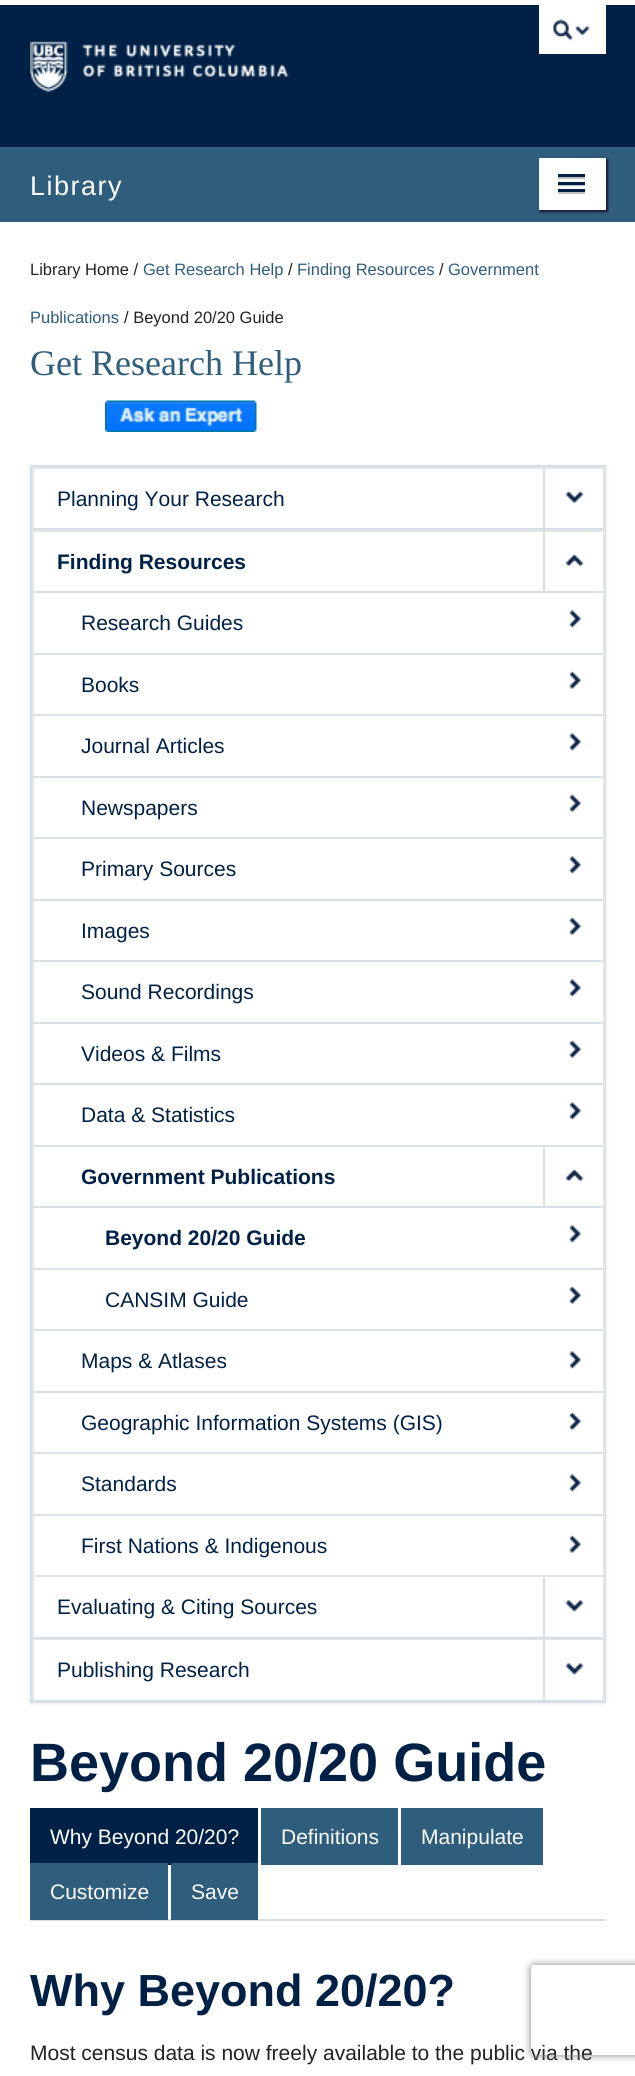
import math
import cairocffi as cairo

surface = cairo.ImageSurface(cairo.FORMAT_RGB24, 635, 2076)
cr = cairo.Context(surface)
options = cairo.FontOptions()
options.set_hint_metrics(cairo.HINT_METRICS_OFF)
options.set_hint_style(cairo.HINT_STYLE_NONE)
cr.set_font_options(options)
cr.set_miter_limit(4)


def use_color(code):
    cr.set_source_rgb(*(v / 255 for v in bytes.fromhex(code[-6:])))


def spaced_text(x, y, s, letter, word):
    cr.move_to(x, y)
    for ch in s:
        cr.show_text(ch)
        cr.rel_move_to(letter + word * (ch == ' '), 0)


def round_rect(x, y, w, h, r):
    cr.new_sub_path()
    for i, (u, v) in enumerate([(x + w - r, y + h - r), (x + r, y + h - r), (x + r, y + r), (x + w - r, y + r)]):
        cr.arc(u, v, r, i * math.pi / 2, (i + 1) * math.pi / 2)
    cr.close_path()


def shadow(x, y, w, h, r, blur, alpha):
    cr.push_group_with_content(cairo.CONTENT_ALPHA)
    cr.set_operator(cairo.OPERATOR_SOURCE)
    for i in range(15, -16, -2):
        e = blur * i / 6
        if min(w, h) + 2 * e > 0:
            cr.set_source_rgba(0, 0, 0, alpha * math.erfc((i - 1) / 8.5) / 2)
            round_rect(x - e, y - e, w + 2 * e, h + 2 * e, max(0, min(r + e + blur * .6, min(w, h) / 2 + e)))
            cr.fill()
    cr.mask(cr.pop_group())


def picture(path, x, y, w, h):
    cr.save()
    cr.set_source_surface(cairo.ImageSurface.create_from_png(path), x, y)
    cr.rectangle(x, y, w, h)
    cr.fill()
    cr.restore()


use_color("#002145")
cr.paint()
use_color("#ffffff")
cr.rectangle(0, 0, 635, 5)
cr.fill()
picture("img1.png", 30, 41, 259, 51)
cr.rectangle(539, 5, 67, 49)
cr.fill()
picture("img2.png", 552, 19, 38, 22)
use_color("#2f5d7c")
cr.rectangle(0, 147, 635, 75)
cr.fill()
cr.select_font_face("Liberation Sans")
cr.set_font_size(27)
use_color("#ffffff")
spaced_text(30, 195, "Library", 1.5, 0)
use_color("#191938")
shadow(540, 159, 68, 53, 0, 1, 1)
use_color("#ffffff")
cr.rectangle(539, 158, 67, 52)
cr.fill()
use_color("#bfbfbf")
cr.rectangle(558, 177, 27, 2)
cr.fill()
use_color("#002145")
cr.rectangle(558, 174, 27, 3)
cr.fill()
use_color("#bfbfbf")
cr.rectangle(558, 185, 27, 1)
cr.fill()
use_color("#002145")
cr.rectangle(558, 182, 27, 3)
cr.fill()
use_color("#bfbfbf")
cr.rectangle(558, 192, 27, 2)
cr.fill()
use_color("#002145")
cr.rectangle(558, 189, 27, 3)
cr.fill()
use_color("#ffffff")
cr.rectangle(0, 222, 635, 1854)
cr.fill()
cr.set_font_size(16.5)
use_color("#222222")
cr.move_to(30, 275)
cr.show_text("Library Home /")
use_color("#2f5d7c")
cr.move_to(143, 275)
cr.show_text("Get Research Help")
use_color("#222222")
cr.move_to(288, 275)
cr.show_text("/")
use_color("#2f5d7c")
cr.move_to(297, 275)
cr.show_text("Finding Resources")
use_color("#222222")
cr.move_to(439, 275)
cr.show_text("/")
use_color("#2f5d7c")
cr.move_to(448, 275)
cr.show_text("Government")
cr.move_to(30, 323)
cr.show_text("Publications")
use_color("#222222")
cr.move_to(124, 323)
cr.show_text("/ Beyond 20/20 Guide")
cr.select_font_face("Liberation Serif")
cr.set_font_size(36)
use_color("#2f5d7c")
cr.move_to(30, 375)
cr.show_text("Get Research Help")
picture("img3.png", 105, 400, 152, 32)
use_color("#000000")
shadow(30, 467, 576, 1237, 0, 3, 0.07)
use_color("#ffffff")
cr.rectangle(34, 469, 569, 1231)
cr.fill()
cr.rectangle(31, 466, 574, 1236)
use_color("#d7e0e7")
cr.stroke()
use_color("#e5e5e5")
cr.rectangle(32, 467, 573, 2)
cr.fill()
cr.rectangle(603, 467, 2, 63)
cr.fill()
cr.rectangle(32, 467, 2, 63)
cr.fill()
use_color("#d7e0e7")
cr.rectangle(33, 528, 570, 2)
cr.fill()
cr.select_font_face("Liberation Sans")
cr.set_font_size(21)
use_color("#002145")
cr.move_to(57, 506)
cr.show_text("Planning Your Research")
use_color("#d7e0e7")
cr.rectangle(543, 468, 2, 60)
cr.fill()
picture("img4.png", 565, 491, 19, 12)
use_color("#e5e5e5")
cr.rectangle(32, 530, 573, 2)
cr.fill()
cr.rectangle(603, 530, 2, 1045)
cr.fill()
cr.rectangle(32, 530, 2, 1045)
cr.fill()
use_color("#d7e0e7")
cr.rectangle(33, 591, 570, 2)
cr.fill()
cr.select_font_face("Liberation Sans", cairo.FONT_SLANT_NORMAL, cairo.FONT_WEIGHT_BOLD)
use_color("#002145")
cr.move_to(57, 569)
cr.show_text("Finding Resources")
use_color("#d7e0e7")
cr.rectangle(543, 531, 2, 60)
cr.fill()
picture("img5.png", 565, 554, 19, 12)
cr.rectangle(33, 653, 570, 2)
cr.fill()
cr.select_font_face("Liberation Sans")
use_color("#002145")
cr.move_to(81, 630)
cr.show_text("Research Guides")
picture("img6.png", 569, 610, 12, 18)
use_color("#d7e0e7")
cr.rectangle(33, 714, 570, 2)
cr.fill()
use_color("#002145")
cr.move_to(81, 692)
cr.show_text("Books")
picture("img7.png", 569, 671, 12, 18)
use_color("#d7e0e7")
cr.rectangle(33, 776, 570, 2)
cr.fill()
use_color("#002145")
cr.move_to(81, 753)
cr.show_text("Journal Articles")
picture("img6.png", 569, 733, 12, 18)
use_color("#d7e0e7")
cr.rectangle(33, 837, 570, 2)
cr.fill()
use_color("#002145")
cr.move_to(81, 815)
cr.show_text("Newspapers")
picture("img7.png", 569, 794, 12, 18)
use_color("#d7e0e7")
cr.rectangle(33, 899, 570, 2)
cr.fill()
use_color("#002145")
cr.move_to(81, 876)
cr.show_text("Primary Sources")
picture("img6.png", 569, 856, 12, 18)
use_color("#d7e0e7")
cr.rectangle(33, 960, 570, 2)
cr.fill()
use_color("#002145")
cr.move_to(81, 938)
cr.show_text("Images")
picture("img7.png", 569, 917, 12, 18)
use_color("#d7e0e7")
cr.rectangle(33, 1022, 570, 2)
cr.fill()
use_color("#002145")
cr.move_to(81, 999)
cr.show_text("Sound Recordings")
picture("img6.png", 569, 979, 12, 18)
use_color("#d7e0e7")
cr.rectangle(33, 1083, 570, 2)
cr.fill()
use_color("#002145")
cr.move_to(81, 1061)
cr.show_text("Videos & Films")
picture("img7.png", 569, 1040, 12, 18)
use_color("#d7e0e7")
cr.rectangle(33, 1145, 570, 2)
cr.fill()
use_color("#002145")
cr.move_to(81, 1122)
cr.show_text("Data & Statistics")
picture("img6.png", 569, 1102, 12, 18)
use_color("#d7e0e7")
cr.rectangle(33, 1206, 570, 2)
cr.fill()
cr.select_font_face("Liberation Sans", cairo.FONT_SLANT_NORMAL, cairo.FONT_WEIGHT_BOLD)
use_color("#002145")
cr.move_to(81, 1184)
cr.show_text("Government Publications")
use_color("#d7e0e7")
cr.rectangle(543, 1146, 2, 60)
cr.fill()
picture("img5.png", 565, 1169, 19, 12)
cr.rectangle(33, 1268, 570, 2)
cr.fill()
use_color("#002145")
cr.move_to(105, 1245)
cr.show_text("Beyond 20/20 Guide")
picture("img6.png", 569, 1225, 12, 18)
use_color("#d7e0e7")
cr.rectangle(33, 1329, 570, 2)
cr.fill()
cr.select_font_face("Liberation Sans")
use_color("#002145")
cr.move_to(105, 1307)
cr.show_text("CANSIM Guide")
picture("img7.png", 569, 1286, 12, 18)
use_color("#d7e0e7")
cr.rectangle(33, 1391, 570, 2)
cr.fill()
use_color("#002145")
cr.move_to(81, 1368)
cr.show_text("Maps & Atlases")
picture("img6.png", 569, 1351, 12, 18)
use_color("#d7e0e7")
cr.rectangle(33, 1452, 570, 2)
cr.fill()
use_color("#002145")
cr.move_to(81, 1430)
cr.show_text("Geographic Information Systems (GIS)")
picture("img7.png", 569, 1412, 12, 18)
use_color("#d7e0e7")
cr.rectangle(33, 1514, 570, 2)
cr.fill()
use_color("#002145")
cr.move_to(81, 1491)
cr.show_text("Standards")
picture("img6.png", 569, 1474, 12, 18)
cr.move_to(81, 1553)
cr.show_text("First Nations & Indigenous")
picture("img7.png", 569, 1535, 12, 18)
use_color("#e5e5e5")
cr.rectangle(32, 1575, 573, 2)
cr.fill()
cr.rectangle(603, 1575, 2, 63)
cr.fill()
cr.rectangle(32, 1575, 2, 63)
cr.fill()
cr.rectangle(32, 1639, 573, 1)
cr.fill()
cr.rectangle(32, 1638, 2, 63)
cr.fill()
use_color("#d7e0e7")
cr.rectangle(33, 1637, 570, 2)
cr.fill()
use_color("#002145")
cr.move_to(57, 1614)
cr.show_text("Evaluating & Citing Sources")
use_color("#d7e0e7")
cr.rectangle(543, 1577, 2, 60)
cr.fill()
picture("img8.png", 565, 1600, 19, 12)
use_color("#e5e5e5")
cr.rectangle(603, 1638, 2, 63)
cr.fill()
use_color("#d7e0e7")
cr.rectangle(33, 1700, 570, 1)
cr.fill()
use_color("#002145")
cr.move_to(57, 1677)
cr.show_text("Publishing Research")
use_color("#d7e0e7")
cr.rectangle(543, 1640, 2, 60)
cr.fill()
picture("img8.png", 565, 1663, 19, 12)
cr.select_font_face("Liberation Sans", cairo.FONT_SLANT_NORMAL, cairo.FONT_WEIGHT_BOLD)
cr.set_font_size(54)
use_color("#002145")
cr.move_to(30, 1781)
cr.show_text("Beyond 20/20 Guide")
use_color("#d7e0e7")
cr.rectangle(30, 1919, 576, 2)
cr.fill()
use_color("#002145")
cr.rectangle(30, 1808, 228, 57)
cr.fill()
cr.select_font_face("Liberation Sans")
cr.set_font_size(21)
use_color("#ffffff")
cr.move_to(50, 1844)
cr.show_text("Why Beyond 20/20?")
use_color("#2f5d7c")
cr.rectangle(261, 1808, 137, 57)
cr.fill()
use_color("#ffffff")
cr.move_to(281, 1844)
cr.show_text("Definitions")
use_color("#2f5d7c")
cr.rectangle(401, 1808, 142, 57)
cr.fill()
use_color("#ffffff")
cr.move_to(421, 1844)
cr.show_text("Manipulate")
use_color("#2f5d7c")
cr.rectangle(30, 1863, 138, 57)
cr.fill()
use_color("#ffffff")
cr.move_to(50, 1899)
cr.show_text("Customize")
use_color("#2f5d7c")
cr.rectangle(171, 1863, 87, 57)
cr.fill()
use_color("#ffffff")
cr.move_to(191, 1899)
cr.show_text("Save")
cr.select_font_face("Liberation Sans", cairo.FONT_SLANT_NORMAL, cairo.FONT_WEIGHT_BOLD)
cr.set_font_size(45)
use_color("#002145")
cr.move_to(30, 2006)
cr.show_text("Why Beyond 20/20?")
cr.select_font_face("Liberation Sans")
cr.set_font_size(21)
use_color("#222222")
cr.move_to(30, 2060)
cr.show_text("Most census data is now freely available to the public via the")
cr.save()
cr.set_fill_rule(cairo.FILL_RULE_EVEN_ODD)
cr.new_path()
cr.move_to(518, 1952)
cr.line_to(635, 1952)
cr.line_to(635, 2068)
cr.line_to(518, 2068)
cr.close_path()
cr.move_to(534, 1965)
cr.line_to(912, 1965)
cr.curve_to(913.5, 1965, 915, 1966.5, 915, 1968)
cr.line_to(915, 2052)
cr.curve_to(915, 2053.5, 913.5, 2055, 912, 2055)
cr.line_to(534, 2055)
cr.curve_to(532.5, 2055, 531, 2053.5, 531, 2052)
cr.line_to(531, 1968)
cr.curve_to(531, 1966.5, 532.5, 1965, 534, 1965)
cr.close_path()
cr.clip()
use_color("#808080")
shadow(531, 1965, 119, 90, 3, 4, 1)
cr.restore()
surface.write_to_png("result.png")
